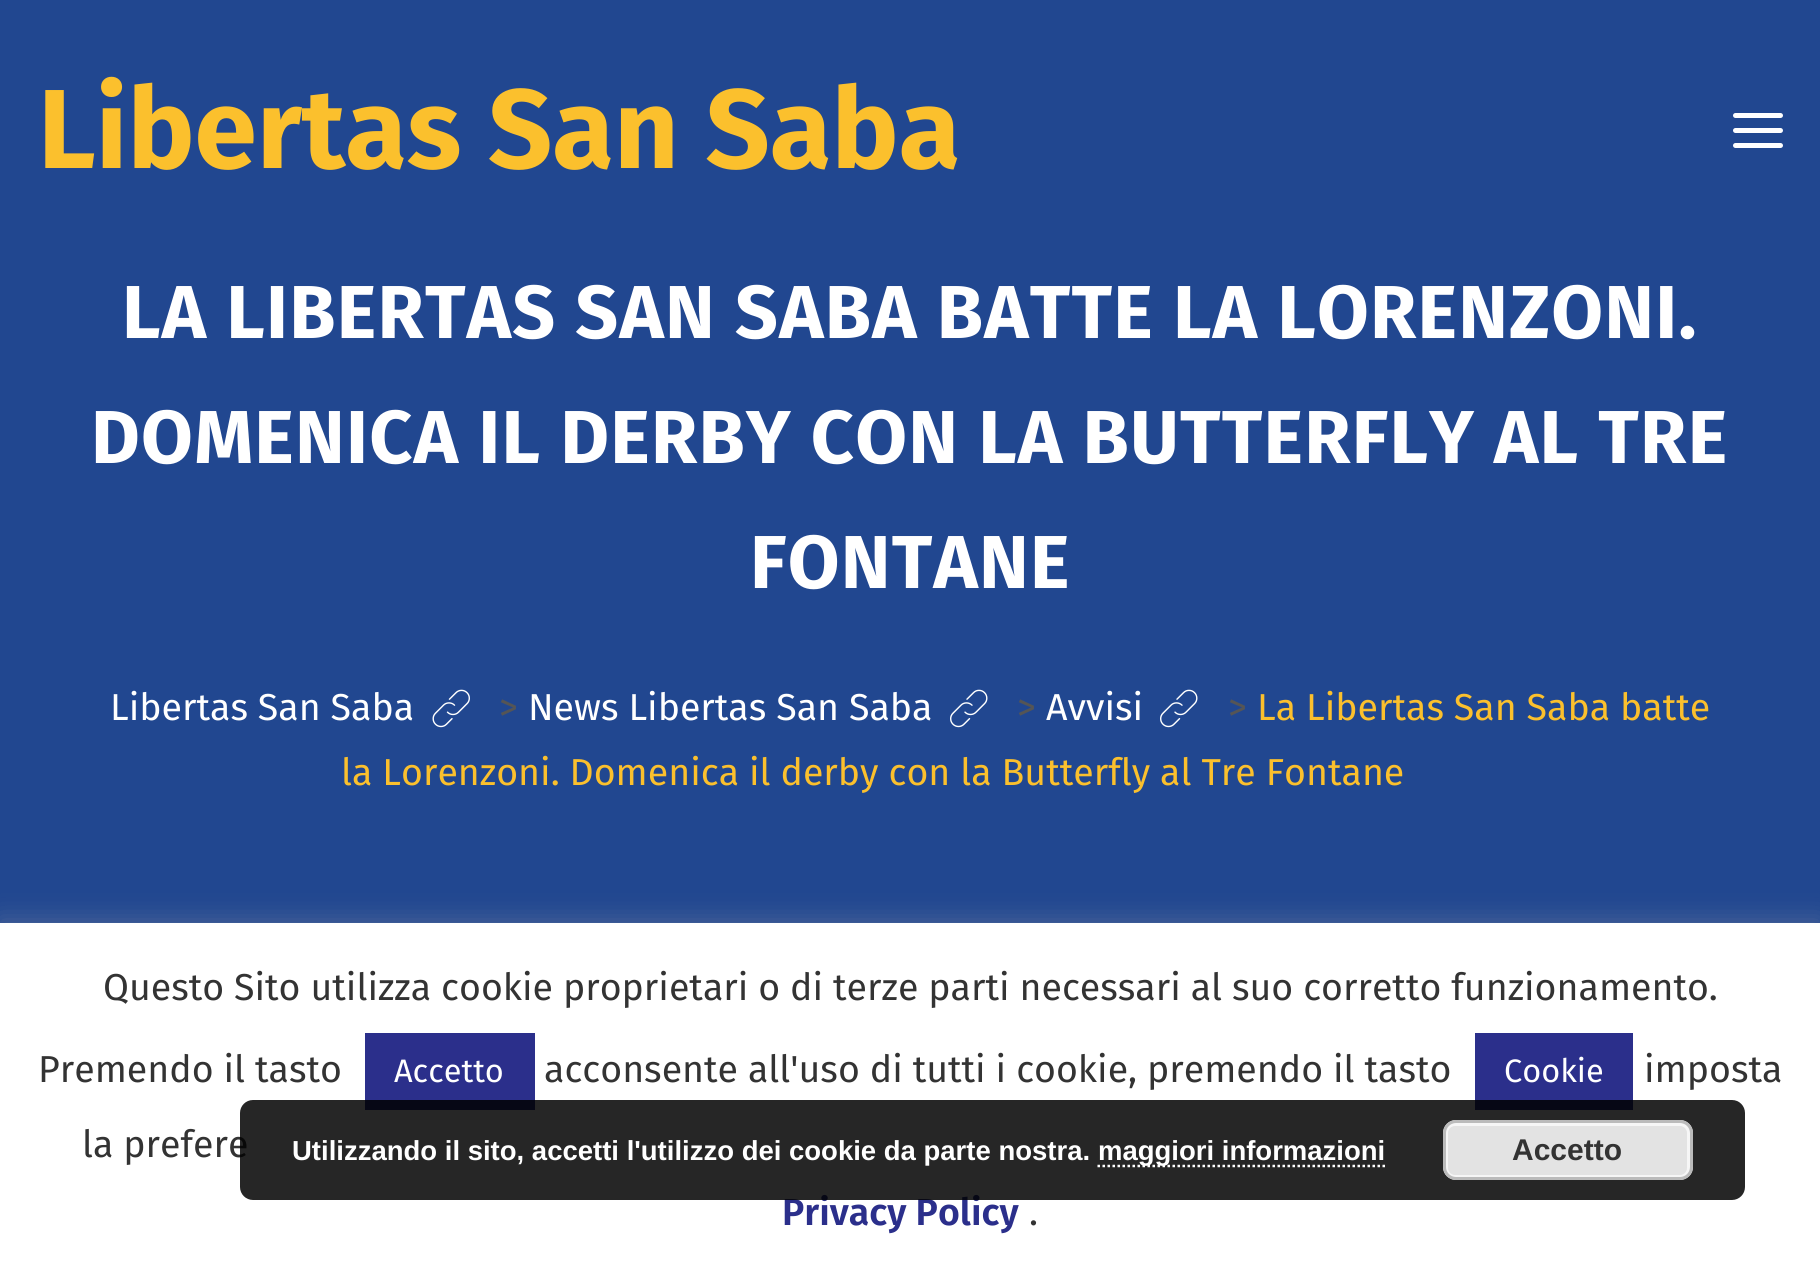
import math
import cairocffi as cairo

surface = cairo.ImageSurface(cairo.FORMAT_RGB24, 1820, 1274)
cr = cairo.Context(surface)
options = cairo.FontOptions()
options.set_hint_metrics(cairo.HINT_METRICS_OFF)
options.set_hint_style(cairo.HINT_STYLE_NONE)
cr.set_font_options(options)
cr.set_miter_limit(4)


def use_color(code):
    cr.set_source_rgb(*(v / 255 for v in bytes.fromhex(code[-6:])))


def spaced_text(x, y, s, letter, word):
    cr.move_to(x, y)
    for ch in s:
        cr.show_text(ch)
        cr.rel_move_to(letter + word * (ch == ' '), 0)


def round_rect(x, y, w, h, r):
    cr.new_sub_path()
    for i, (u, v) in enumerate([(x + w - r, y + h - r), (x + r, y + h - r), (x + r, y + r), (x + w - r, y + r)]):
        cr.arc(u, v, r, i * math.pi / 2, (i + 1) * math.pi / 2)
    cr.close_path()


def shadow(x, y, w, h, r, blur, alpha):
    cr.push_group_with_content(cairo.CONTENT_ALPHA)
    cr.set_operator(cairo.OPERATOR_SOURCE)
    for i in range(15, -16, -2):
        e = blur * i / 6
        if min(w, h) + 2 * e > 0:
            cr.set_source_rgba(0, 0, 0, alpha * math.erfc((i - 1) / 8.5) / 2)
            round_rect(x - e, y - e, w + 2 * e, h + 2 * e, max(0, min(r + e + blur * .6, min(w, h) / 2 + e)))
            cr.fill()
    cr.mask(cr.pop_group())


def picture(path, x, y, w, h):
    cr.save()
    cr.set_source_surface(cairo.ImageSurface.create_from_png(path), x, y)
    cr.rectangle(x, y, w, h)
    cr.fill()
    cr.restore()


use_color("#214790")
cr.paint()
cr.select_font_face("Fira Sans", cairo.FONT_SLANT_NORMAL, cairo.FONT_WEIGHT_BOLD)
cr.set_font_size(112.5)
use_color("#fbc02d")
cr.move_to(38, 168)
cr.show_text("Libertas San Saba")
use_color("#ffffff")
round_rect(1733, 113, 50, 5, 2.5)
cr.fill()
round_rect(1733, 128, 50, 5, 2.5)
cr.fill()
round_rect(1733, 143, 50, 5, 2.5)
cr.fill()
cr.set_font_size(75)
spaced_text(122, 338, "LA LIBERTAS SAN SABA BATTE LA LORENZONI.", 1.25, 0)
spaced_text(91, 463, "DOMENICA IL DERBY CON LA BUTTERFLY AL TRE", 1.25, 0)
spaced_text(750, 588, "FONTANE", 1.25, 0)
cr.select_font_face("Fira Sans")
cr.set_font_size(37.5)
cr.move_to(110, 720)
cr.show_text("Libertas San Saba")
picture("img1.png", 432, 689, 38, 39)
use_color("#555555")
cr.move_to(499, 720)
cr.show_text(">")
use_color("#ffffff")
cr.move_to(528, 720)
cr.show_text("News Libertas San Saba")
picture("img2.png", 950, 689, 38, 39)
use_color("#555555")
cr.move_to(1017, 720)
cr.show_text(">")
use_color("#ffffff")
cr.move_to(1046, 720)
cr.show_text("Avvisi")
picture("img2.png", 1160, 689, 38, 39)
use_color("#555555")
cr.move_to(1228, 720)
cr.show_text(">")
use_color("#fbc02d")
cr.move_to(1257, 720)
cr.show_text("La Libertas San Saba batte")
cr.move_to(341, 785)
cr.show_text("la Lorenzoni. Domenica il derby con la Butterfly al Tre Fontane")
use_color("#acabab")
shadow(0, 920, 1820, 353, 0, 12.5, 0.3)
use_color("#ffffff")
cr.rectangle(0, 923, 1820, 351)
cr.fill()
use_color("#333333")
cr.move_to(103, 1000)
cr.show_text("Questo Sito utilizza cookie proprietari o di terze parti necessari al suo corretto funzionamento.")
cr.move_to(38, 1082)
cr.show_text("Premendo il tasto")
use_color("#2b2f8b")
cr.rectangle(365, 1033, 170, 77)
cr.fill()
cr.set_font_size(32.5)
use_color("#ffffff")
cr.move_to(394, 1082)
cr.show_text("Accetto")
cr.set_font_size(37.5)
use_color("#333333")
cr.move_to(544, 1082)
cr.show_text("acconsente all'uso di tutti i cookie, premendo il tasto")
use_color("#2b2f8b")
cr.rectangle(1475, 1033, 158, 77)
cr.fill()
cr.set_font_size(32.5)
use_color("#ffffff")
cr.move_to(1504, 1082)
cr.show_text("Cookie")
cr.set_font_size(37.5)
use_color("#333333")
cr.move_to(1644, 1082)
cr.show_text("imposta")
cr.move_to(82, 1157)
cr.show_text("la prefere")
cr.select_font_face("Fira Sans SemiBold")
use_color("#2b2f8b")
cr.move_to(782, 1225)
cr.show_text("Privacy Policy")
cr.select_font_face("Fira Sans")
use_color("#333333")
cr.move_to(1029, 1225)
cr.show_text(".")
cr.set_source_rgba(0, 0, 0, 0.85)
round_rect(240, 1100, 1505, 100, 13)
cr.fill()
cr.select_font_face("Liberation Sans", cairo.FONT_SLANT_NORMAL, cairo.FONT_WEIGHT_BOLD)
cr.set_font_size(27.5)
use_color("#ffffff")
cr.move_to(292, 1160)
cr.show_text("Utilizzando il sito, accetti l'utilizzo dei cookie da parte nostra.")
cr.new_path()
cr.move_to(1097.5, 1166)
cr.line_to(1385, 1166)
cr.set_line_width(2.5)
cr.set_dash([2.5, 2.5])
cr.stroke()
cr.move_to(1098, 1160)
cr.show_text("maggiori informazioni")
use_color("#e3e3e3")
round_rect(1443, 1120, 250, 60, 13)
cr.fill()
round_rect(1446.5, 1124.5, 242, 52, 8.5)
use_color("#f6f6f6")
cr.set_line_width(3)
cr.set_dash([])
cr.stroke()
round_rect(1444.5, 1121.5, 247, 57, 11.5)
use_color("#bbbbbb")
cr.stroke()
cr.set_font_size(30)
use_color("#333333")
cr.move_to(1512, 1160)
cr.show_text("Accetto")
surface.write_to_png("result.png")
